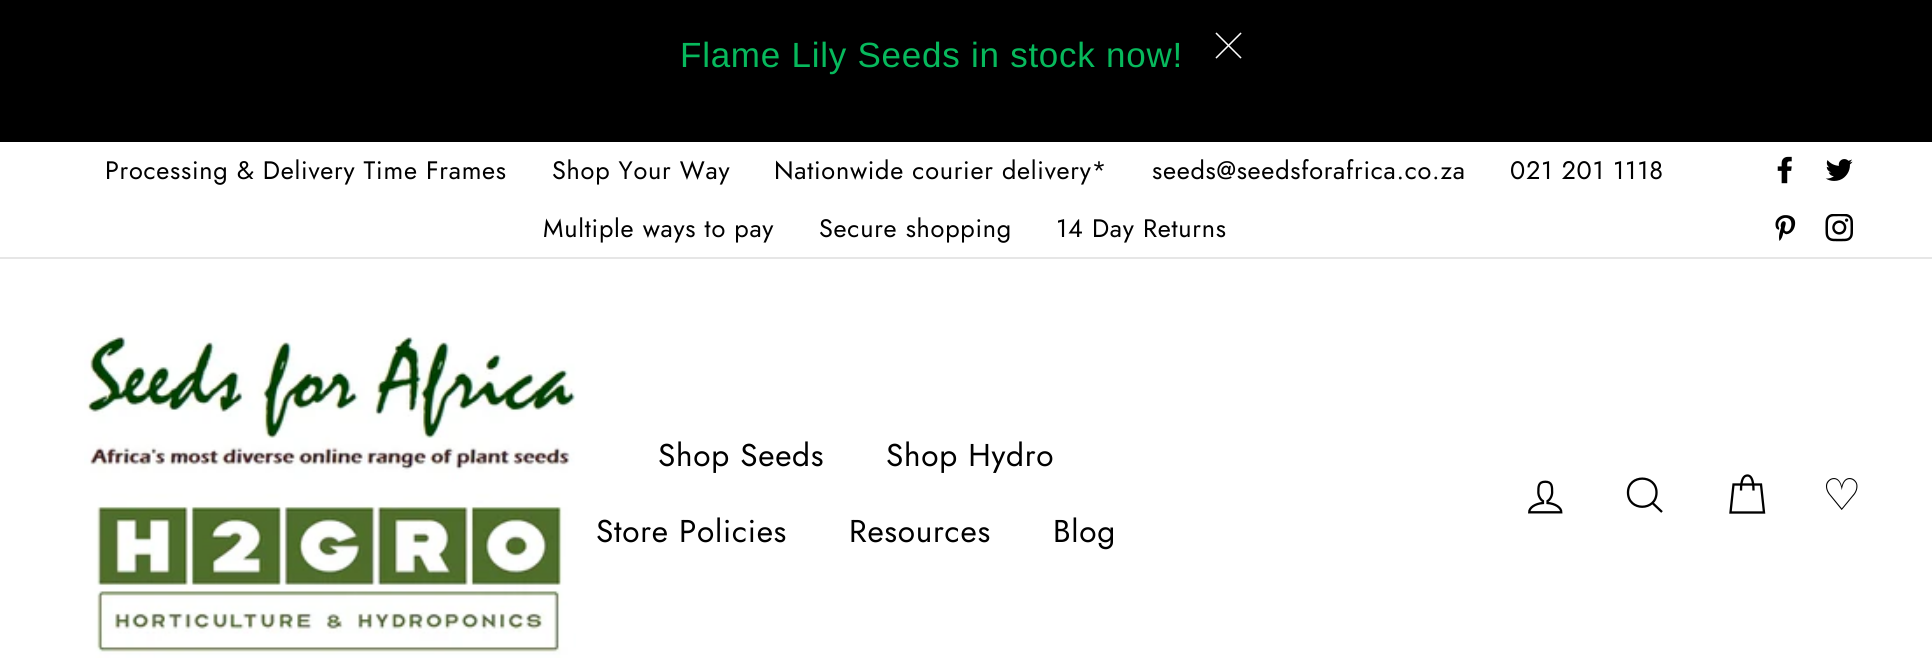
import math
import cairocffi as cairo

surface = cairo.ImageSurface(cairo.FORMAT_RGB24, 1932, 658)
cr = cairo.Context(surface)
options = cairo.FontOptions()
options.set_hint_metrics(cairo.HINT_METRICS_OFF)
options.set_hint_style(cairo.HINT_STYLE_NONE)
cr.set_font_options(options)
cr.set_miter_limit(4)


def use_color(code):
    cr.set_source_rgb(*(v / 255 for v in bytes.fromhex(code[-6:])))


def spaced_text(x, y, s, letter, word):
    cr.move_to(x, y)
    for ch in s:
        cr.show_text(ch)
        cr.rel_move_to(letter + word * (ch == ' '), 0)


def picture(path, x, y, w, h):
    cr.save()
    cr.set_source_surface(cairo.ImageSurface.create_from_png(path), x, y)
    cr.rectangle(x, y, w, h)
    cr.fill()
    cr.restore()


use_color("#ffffff")
cr.paint()
use_color("#000000")
cr.rectangle(0, 0, 1932, 142)
cr.fill()
cr.select_font_face("Liberation Sans")
cr.set_font_size(35)
use_color("#07b95c")
spaced_text(680, 67, "Flame Lily Seeds in stock now!", 0.75, 0)
picture("img1.png", 1215, 32, 27, 27)
cr.select_font_face("Jost")
cr.set_font_size(25.25)
use_color("#000000")
spaced_text(105, 179, "Processing & Delivery Time Frames", 0.75, 0)
spaced_text(552, 179, "Shop Your Way", 0.75, 0)
spaced_text(774, 179, "Nationwide courier delivery*", 0.75, 0)
spaced_text(1152, 179, "seeds@seedsforafrica.co.za", 0.75, 0)
spaced_text(1510, 179, "021 201 1118", 0.75, 0)
spaced_text(543, 237, "Multiple ways to pay", 0.75, 0)
spaced_text(819, 237, "Secure shopping", 0.75, 0)
spaced_text(1056, 237, "14 Day Returns", 0.75, 0)
picture("img2.png", 1777, 156, 15, 28)
picture("img3.png", 1825, 159, 28, 22)
picture("img4.png", 1775, 215, 21, 26)
picture("img5.png", 1825, 214, 28, 28)
use_color("#e6e6e6")
cr.rectangle(0, 257, 1932, 2)
cr.fill()
picture("img6.png", 84, 335, 492, 323)
cr.set_font_size(31.5)
use_color("#000000")
spaced_text(658, 466, "Shop Seeds", 0.75, 0)
spaced_text(886, 466, "Shop Hydro", 0.75, 0)
spaced_text(596, 542, "Store Policies", 0.75, 0)
spaced_text(849, 542, "Resources", 0.75, 0)
spaced_text(1053, 542, "Blog", 0.75, 0)
picture("img7.png", 1528, 480, 35, 34)
cr.new_path()
cr.move_to(1656.5, 492.5)
cr.curve_to(1656.5, 511.5, 1628, 511.5, 1628, 492.5)
cr.curve_to(1628, 474, 1656.5, 474, 1656.5, 492.5)
cr.close_path()
cr.move_to(1662, 512)
cr.line_to(1652.5, 503)
cr.set_line_width(2.3)
cr.stroke()
cr.new_path()
cr.move_to(1741, 490.5)
cr.curve_to(1741, 478.5, 1744, 475.5, 1747.5, 475.5)
cr.curve_to(1750.5, 475.5, 1753.5, 478.5, 1753.5, 490.5)
cr.move_to(1733.5, 484.5)
cr.line_to(1761, 484.5)
cr.line_to(1764, 512.5)
cr.line_to(1730.5, 512.5)
cr.close_path()
cr.stroke()
cr.select_font_face("DejaVu Sans")
cr.set_font_size(44)
spaced_text(1822, 510, "♡", 0.75, 0)
surface.write_to_png("result.png")
